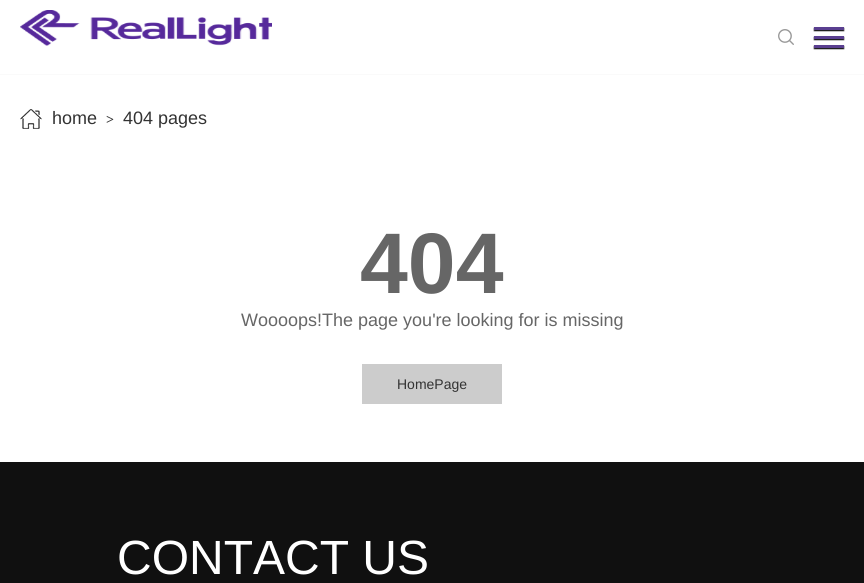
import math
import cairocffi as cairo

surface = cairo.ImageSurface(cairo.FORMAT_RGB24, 864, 583)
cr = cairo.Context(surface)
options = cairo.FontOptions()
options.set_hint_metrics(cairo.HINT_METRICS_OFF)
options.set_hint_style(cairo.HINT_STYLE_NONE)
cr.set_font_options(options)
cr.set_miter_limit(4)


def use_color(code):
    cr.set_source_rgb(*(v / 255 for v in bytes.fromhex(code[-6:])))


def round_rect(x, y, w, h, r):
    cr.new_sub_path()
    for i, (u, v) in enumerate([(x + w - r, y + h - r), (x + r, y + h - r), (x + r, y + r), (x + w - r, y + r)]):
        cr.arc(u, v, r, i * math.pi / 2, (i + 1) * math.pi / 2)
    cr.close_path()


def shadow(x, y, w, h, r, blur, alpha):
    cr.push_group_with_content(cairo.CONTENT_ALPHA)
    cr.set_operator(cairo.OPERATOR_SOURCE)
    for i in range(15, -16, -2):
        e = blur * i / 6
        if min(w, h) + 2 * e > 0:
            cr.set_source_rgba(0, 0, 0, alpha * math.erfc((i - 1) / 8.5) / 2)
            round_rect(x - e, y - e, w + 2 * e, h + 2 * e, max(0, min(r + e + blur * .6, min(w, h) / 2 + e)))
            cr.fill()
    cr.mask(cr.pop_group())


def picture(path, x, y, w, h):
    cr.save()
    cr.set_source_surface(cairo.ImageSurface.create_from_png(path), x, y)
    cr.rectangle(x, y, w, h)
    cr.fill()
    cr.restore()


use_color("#ffffff")
cr.paint()
use_color("#fafafa")
cr.rectangle(0, 74, 864, 1)
cr.fill()
picture("img1.png", 20, 10, 252, 36)
picture("img2.png", 778, 29, 16, 16)
use_color("#000000")
shadow(814, 28, 30, 3, 0, 0.5, 1)
use_color("#5a3f90")
cr.rectangle(814, 27, 30, 3)
cr.fill()
use_color("#000000")
shadow(814, 37, 30, 3, 0, 0.5, 1)
use_color("#5a3f90")
cr.rectangle(814, 36, 30, 3)
cr.fill()
use_color("#000000")
shadow(814, 46, 30, 3, 0, 0.5, 1)
use_color("#5a3f90")
cr.rectangle(814, 45, 30, 3)
cr.fill()
picture("img3.png", 20, 109, 22, 20)
cr.select_font_face("Liberation Sans")
cr.set_font_size(18)
use_color("#333333")
cr.move_to(52, 124)
cr.show_text("home")
cr.select_font_face("Liberation Serif", cairo.FONT_SLANT_NORMAL, cairo.FONT_WEIGHT_BOLD)
cr.set_font_size(14)
cr.move_to(106, 124)
cr.show_text(">")
cr.select_font_face("Liberation Sans")
cr.set_font_size(18)
cr.move_to(123, 124)
cr.show_text("404 pages")
cr.select_font_face("Liberation Sans", cairo.FONT_SLANT_NORMAL, cairo.FONT_WEIGHT_BOLD)
cr.set_font_size(86)
use_color("#666666")
cr.move_to(360, 293)
cr.show_text("404")
cr.select_font_face("Liberation Sans")
cr.set_font_size(18)
cr.move_to(241, 326)
cr.show_text("Woooops!The page you're looking for is missing")
use_color("#cccccc")
cr.rectangle(362, 364, 140, 40)
cr.fill()
cr.set_font_size(14)
use_color("#333333")
cr.move_to(397, 389)
cr.show_text("HomePage")
use_color("#101010")
cr.rectangle(0, 462, 864, 121)
cr.fill()
cr.set_font_size(48)
use_color("#ffffff")
cr.move_to(117, 574)
cr.show_text("CONTACT US")
surface.write_to_png("result.png")
